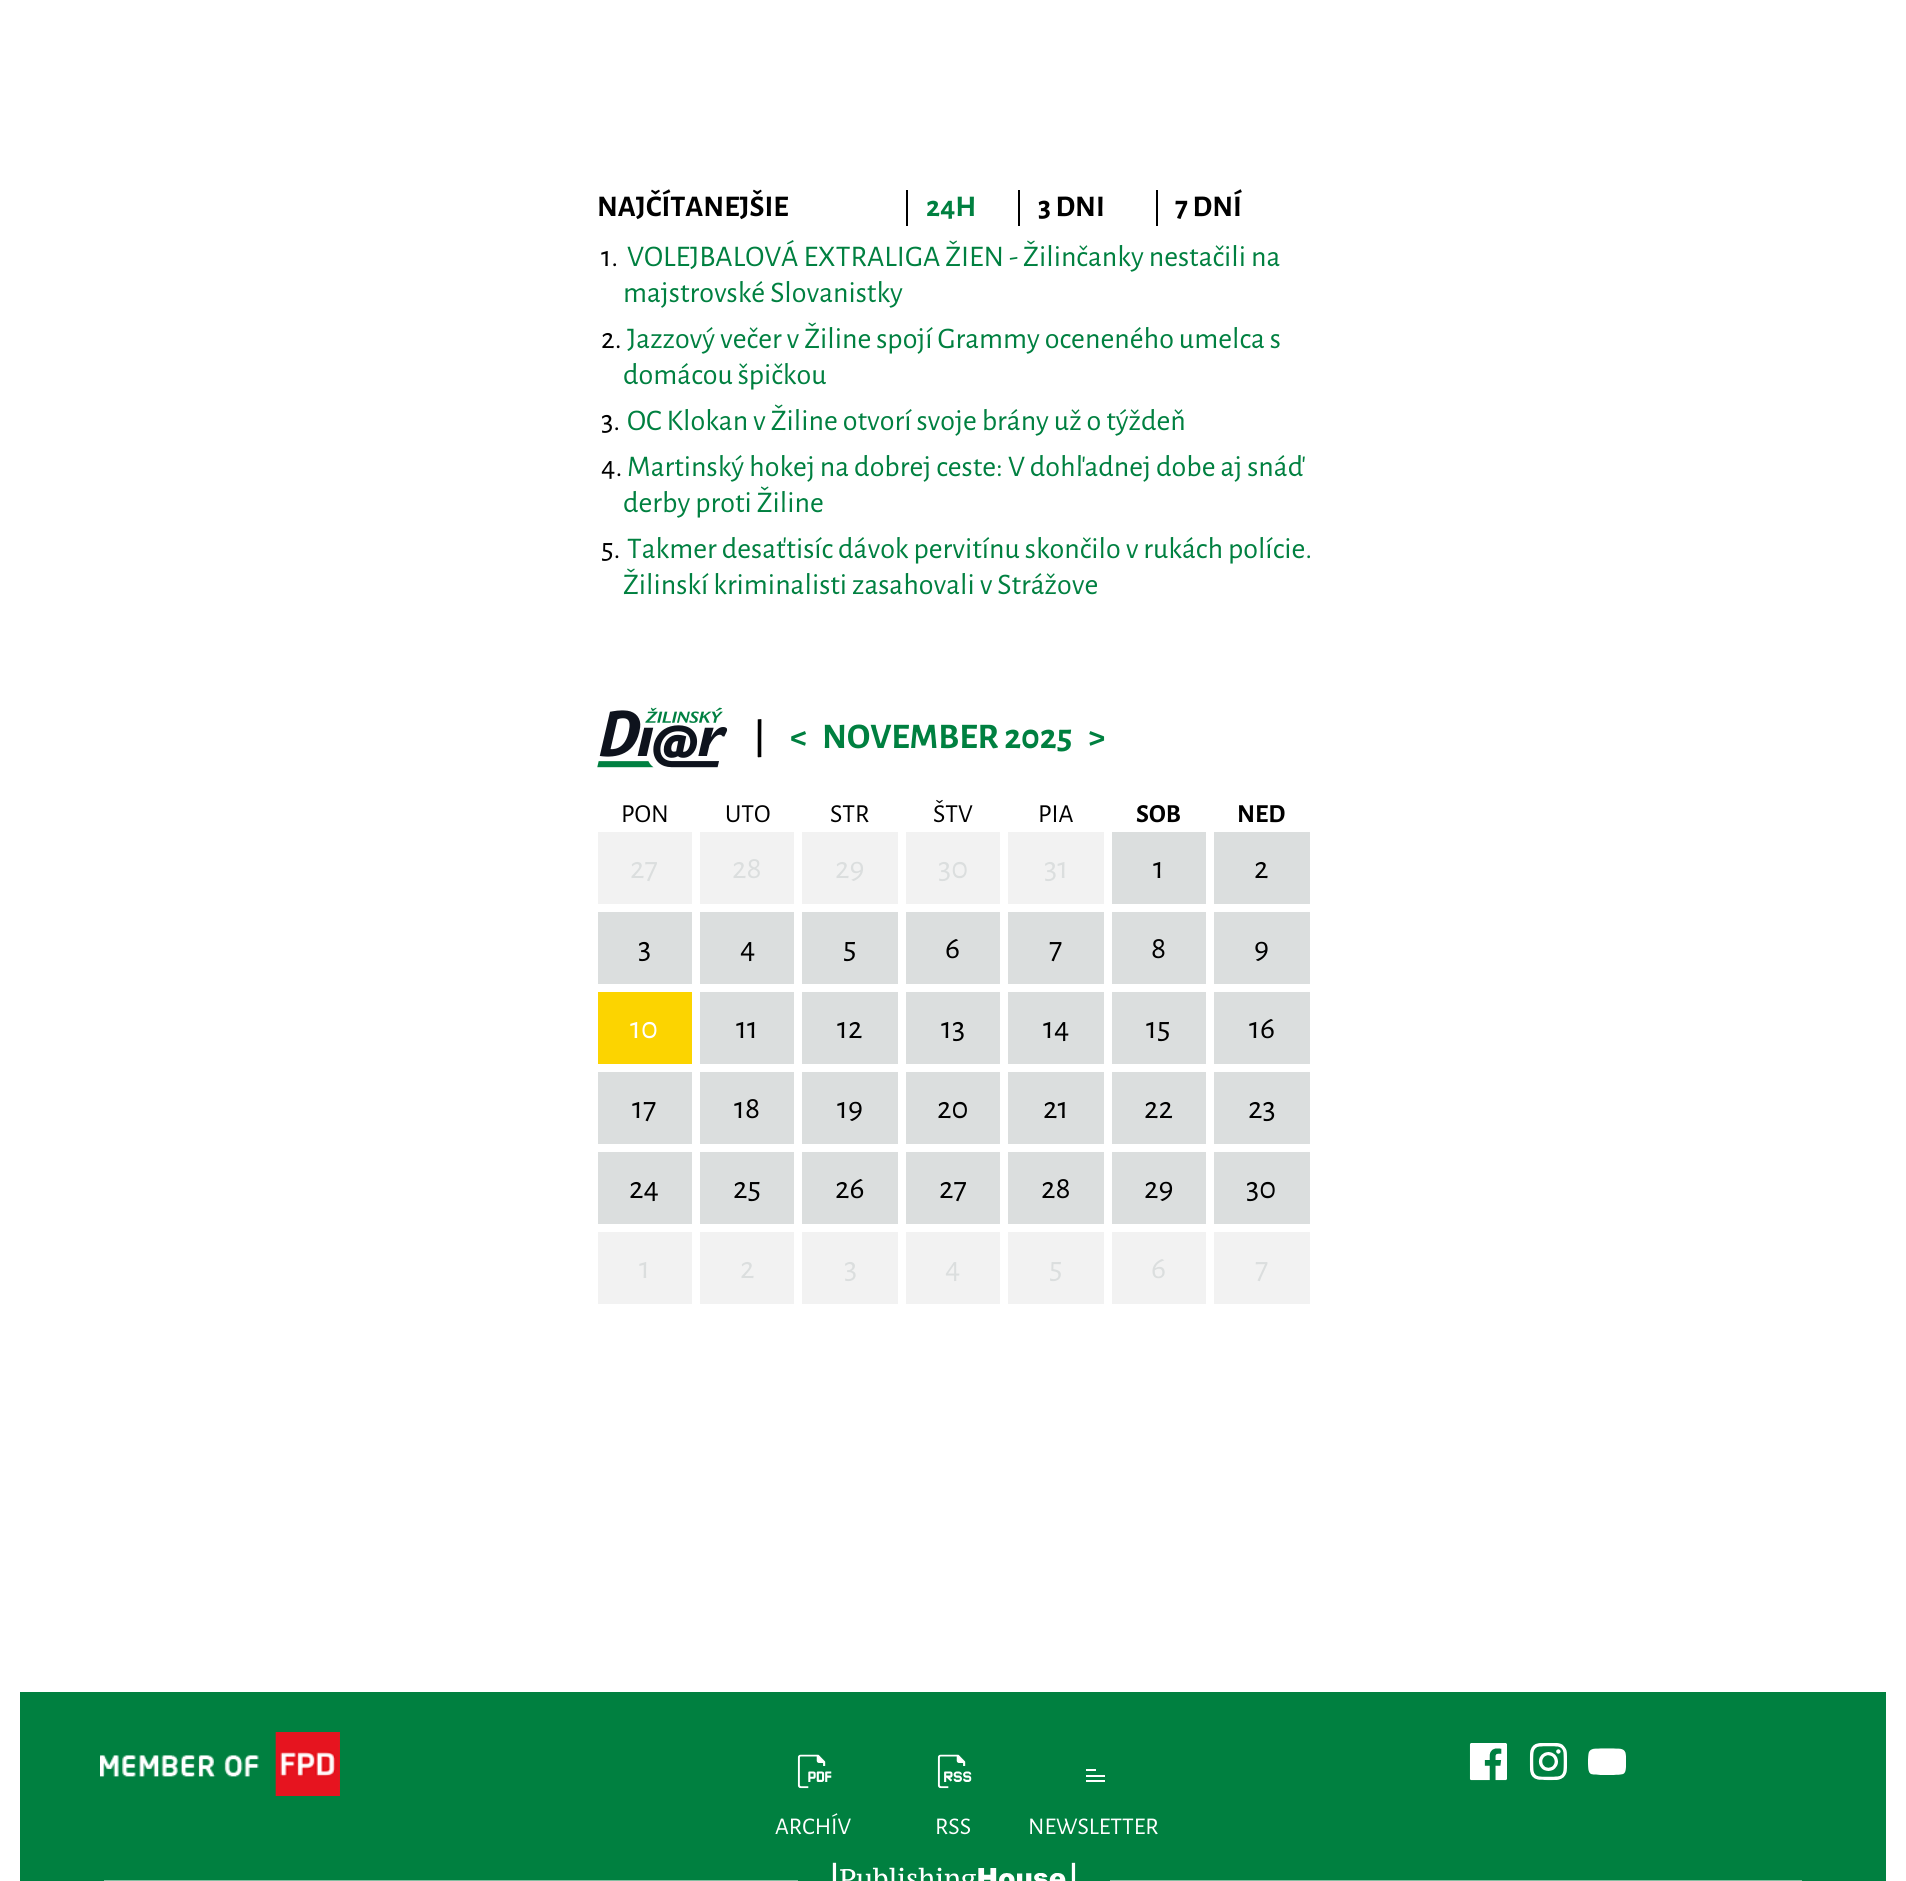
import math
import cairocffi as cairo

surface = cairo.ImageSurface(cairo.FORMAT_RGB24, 1906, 1881)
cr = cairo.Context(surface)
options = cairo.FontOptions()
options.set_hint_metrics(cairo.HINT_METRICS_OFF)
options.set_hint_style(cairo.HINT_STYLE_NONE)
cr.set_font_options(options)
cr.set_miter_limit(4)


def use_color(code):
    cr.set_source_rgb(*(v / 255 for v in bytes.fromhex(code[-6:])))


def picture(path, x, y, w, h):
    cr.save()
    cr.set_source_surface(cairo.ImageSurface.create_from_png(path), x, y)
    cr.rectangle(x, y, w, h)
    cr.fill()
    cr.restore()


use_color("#ffffff")
cr.paint()
cr.select_font_face("Alegreya Sans", cairo.FONT_SLANT_NORMAL, cairo.FONT_WEIGHT_BOLD)
cr.set_font_size(30)
use_color("#000000")
cr.move_to(597, 216)
cr.show_text("NAJČÍTANEJŠIE")
cr.rectangle(906, 190, 2, 36)
cr.fill()
use_color("#008040")
cr.move_to(926, 216)
cr.show_text("24H")
use_color("#000000")
cr.rectangle(1018, 190, 2, 36)
cr.fill()
cr.move_to(1038, 216)
cr.show_text("3 DNI")
cr.rectangle(1156, 190, 2, 36)
cr.fill()
cr.move_to(1175, 216)
cr.show_text("7 DNÍ")
cr.select_font_face("Alegreya Sans")
cr.move_to(601, 266)
cr.show_text("1.")
use_color("#008040")
cr.move_to(627, 266)
cr.show_text("VOLEJBALOVÁ EXTRALIGA ŽIEN - Žilinčanky nestačili na")
cr.move_to(623, 302)
cr.show_text("majstrovské Slovanistky")
use_color("#000000")
cr.move_to(601, 348)
cr.show_text("2.")
use_color("#008040")
cr.move_to(627, 348)
cr.show_text("Jazzový večer v Žiline spojí Grammy oceneného umelca s")
cr.move_to(623, 384)
cr.show_text("domácou špičkou")
use_color("#000000")
cr.move_to(601, 430)
cr.show_text("3.")
use_color("#008040")
cr.move_to(627, 430)
cr.show_text("OC Klokan v Žiline otvorí svoje brány už o týždeň")
use_color("#000000")
cr.move_to(601, 476)
cr.show_text("4.")
use_color("#008040")
cr.move_to(627, 476)
cr.show_text("Martinský hokej na dobrej ceste: V dohľadnej dobe aj snáď")
cr.move_to(623, 512)
cr.show_text("derby proti Žiline")
use_color("#000000")
cr.move_to(601, 558)
cr.show_text("5.")
use_color("#008040")
cr.move_to(627, 558)
cr.show_text("Takmer desaťtisíc dávok pervitínu skončilo v rukách polície.")
cr.move_to(623, 594)
cr.show_text("Žilinskí kriminalisti zasahovali v Strážove")
picture("img1.png", 597, 707, 131, 61)
cr.select_font_face("Alegreya Sans", cairo.FONT_SLANT_NORMAL, cairo.FONT_WEIGHT_BOLD)
cr.set_font_size(36)
use_color("#000000")
cr.move_to(754, 748)
cr.show_text("|")
use_color("#008040")
cr.move_to(790, 748)
cr.show_text("<")
cr.move_to(822, 748)
cr.show_text("NOVEMBER 2025")
cr.move_to(1088, 748)
cr.show_text(">")
cr.select_font_face("Alegreya Sans")
cr.set_font_size(26)
use_color("#000000")
cr.move_to(621, 822)
cr.show_text("PON")
cr.move_to(725, 822)
cr.show_text("UTO")
cr.move_to(830, 822)
cr.show_text("STR")
cr.move_to(933, 822)
cr.show_text("ŠTV")
cr.move_to(1038, 822)
cr.show_text("PIA")
cr.select_font_face("Alegreya Sans", cairo.FONT_SLANT_NORMAL, cairo.FONT_WEIGHT_BOLD)
cr.move_to(1136, 822)
cr.show_text("SOB")
cr.move_to(1237, 822)
cr.show_text("NED")
use_color("#f2f2f2")
cr.rectangle(598, 832, 94, 72)
cr.fill()
cr.select_font_face("Alegreya Sans")
cr.set_font_size(32)
use_color("#dbdede")
cr.move_to(630, 878)
cr.show_text("27")
use_color("#f2f2f2")
cr.rectangle(700, 832, 94, 72)
cr.fill()
use_color("#dbdede")
cr.move_to(732, 878)
cr.show_text("28")
use_color("#f2f2f2")
cr.rectangle(802, 832, 96, 72)
cr.fill()
use_color("#dbdede")
cr.move_to(835, 878)
cr.show_text("29")
use_color("#f2f2f2")
cr.rectangle(906, 832, 94, 72)
cr.fill()
use_color("#dbdede")
cr.move_to(938, 878)
cr.show_text("30")
use_color("#f2f2f2")
cr.rectangle(1008, 832, 96, 72)
cr.fill()
use_color("#dbdede")
cr.move_to(1044, 878)
cr.show_text("31")
cr.rectangle(1112, 832, 94, 72)
cr.fill()
use_color("#000000")
cr.move_to(1153, 878)
cr.show_text("1")
use_color("#dbdede")
cr.rectangle(1214, 832, 96, 72)
cr.fill()
use_color("#000000")
cr.move_to(1254, 878)
cr.show_text("2")
use_color("#dbdede")
cr.rectangle(598, 912, 94, 72)
cr.fill()
use_color("#000000")
cr.move_to(638, 958)
cr.show_text("3")
use_color("#dbdede")
cr.rectangle(700, 912, 94, 72)
cr.fill()
use_color("#000000")
cr.move_to(740, 958)
cr.show_text("4")
use_color("#dbdede")
cr.rectangle(802, 912, 96, 72)
cr.fill()
use_color("#000000")
cr.move_to(843, 958)
cr.show_text("5")
use_color("#dbdede")
cr.rectangle(906, 912, 94, 72)
cr.fill()
use_color("#000000")
cr.move_to(945, 958)
cr.show_text("6")
use_color("#dbdede")
cr.rectangle(1008, 912, 96, 72)
cr.fill()
use_color("#000000")
cr.move_to(1049, 958)
cr.show_text("7")
use_color("#dbdede")
cr.rectangle(1112, 912, 94, 72)
cr.fill()
use_color("#000000")
cr.move_to(1151, 958)
cr.show_text("8")
use_color("#dbdede")
cr.rectangle(1214, 912, 96, 72)
cr.fill()
use_color("#000000")
cr.move_to(1254, 958)
cr.show_text("9")
use_color("#fcd400")
cr.rectangle(598, 992, 94, 72)
cr.fill()
use_color("#ffffff")
cr.move_to(630, 1038)
cr.show_text("10")
use_color("#dbdede")
cr.rectangle(700, 992, 94, 72)
cr.fill()
use_color("#000000")
cr.move_to(736, 1038)
cr.show_text("11")
use_color("#dbdede")
cr.rectangle(802, 992, 96, 72)
cr.fill()
use_color("#000000")
cr.move_to(837, 1038)
cr.show_text("12")
use_color("#dbdede")
cr.rectangle(906, 992, 94, 72)
cr.fill()
use_color("#000000")
cr.move_to(941, 1038)
cr.show_text("13")
use_color("#dbdede")
cr.rectangle(1008, 992, 96, 72)
cr.fill()
use_color("#000000")
cr.move_to(1043, 1038)
cr.show_text("14")
use_color("#dbdede")
cr.rectangle(1112, 992, 94, 72)
cr.fill()
use_color("#000000")
cr.move_to(1146, 1038)
cr.show_text("15")
use_color("#dbdede")
cr.rectangle(1214, 992, 96, 72)
cr.fill()
use_color("#000000")
cr.move_to(1249, 1038)
cr.show_text("16")
use_color("#dbdede")
cr.rectangle(598, 1072, 94, 72)
cr.fill()
use_color("#000000")
cr.move_to(632, 1118)
cr.show_text("17")
use_color("#dbdede")
cr.rectangle(700, 1072, 94, 72)
cr.fill()
use_color("#000000")
cr.move_to(734, 1118)
cr.show_text("18")
use_color("#dbdede")
cr.rectangle(802, 1072, 96, 72)
cr.fill()
use_color("#000000")
cr.move_to(837, 1118)
cr.show_text("19")
use_color("#dbdede")
cr.rectangle(906, 1072, 94, 72)
cr.fill()
use_color("#000000")
cr.move_to(937, 1118)
cr.show_text("20")
use_color("#dbdede")
cr.rectangle(1008, 1072, 96, 72)
cr.fill()
use_color("#000000")
cr.move_to(1043, 1118)
cr.show_text("21")
use_color("#dbdede")
cr.rectangle(1112, 1072, 94, 72)
cr.fill()
use_color("#000000")
cr.move_to(1144, 1118)
cr.show_text("22")
use_color("#dbdede")
cr.rectangle(1214, 1072, 96, 72)
cr.fill()
use_color("#000000")
cr.move_to(1248, 1118)
cr.show_text("23")
use_color("#dbdede")
cr.rectangle(598, 1152, 94, 72)
cr.fill()
use_color("#000000")
cr.move_to(629, 1198)
cr.show_text("24")
use_color("#dbdede")
cr.rectangle(700, 1152, 94, 72)
cr.fill()
use_color("#000000")
cr.move_to(733, 1198)
cr.show_text("25")
use_color("#dbdede")
cr.rectangle(802, 1152, 96, 72)
cr.fill()
use_color("#000000")
cr.move_to(835, 1198)
cr.show_text("26")
use_color("#dbdede")
cr.rectangle(906, 1152, 94, 72)
cr.fill()
use_color("#000000")
cr.move_to(939, 1198)
cr.show_text("27")
use_color("#dbdede")
cr.rectangle(1008, 1152, 96, 72)
cr.fill()
use_color("#000000")
cr.move_to(1041, 1198)
cr.show_text("28")
use_color("#dbdede")
cr.rectangle(1112, 1152, 94, 72)
cr.fill()
use_color("#000000")
cr.move_to(1144, 1198)
cr.show_text("29")
use_color("#dbdede")
cr.rectangle(1214, 1152, 96, 72)
cr.fill()
use_color("#000000")
cr.move_to(1246, 1198)
cr.show_text("30")
use_color("#f2f2f2")
cr.rectangle(598, 1232, 94, 72)
cr.fill()
use_color("#dbdede")
cr.move_to(639, 1278)
cr.show_text("1")
use_color("#f2f2f2")
cr.rectangle(700, 1232, 94, 72)
cr.fill()
use_color("#dbdede")
cr.move_to(740, 1278)
cr.show_text("2")
use_color("#f2f2f2")
cr.rectangle(802, 1232, 96, 72)
cr.fill()
use_color("#dbdede")
cr.move_to(844, 1278)
cr.show_text("3")
use_color("#f2f2f2")
cr.rectangle(906, 1232, 94, 72)
cr.fill()
use_color("#dbdede")
cr.move_to(945, 1278)
cr.show_text("4")
use_color("#f2f2f2")
cr.rectangle(1008, 1232, 96, 72)
cr.fill()
use_color("#dbdede")
cr.move_to(1049, 1278)
cr.show_text("5")
use_color("#f2f2f2")
cr.rectangle(1112, 1232, 94, 72)
cr.fill()
use_color("#dbdede")
cr.move_to(1151, 1278)
cr.show_text("6")
use_color("#f2f2f2")
cr.rectangle(1214, 1232, 96, 72)
cr.fill()
use_color("#dbdede")
cr.move_to(1255, 1278)
cr.show_text("7")
use_color("#008040")
cr.rectangle(20, 1692, 1866, 189)
cr.fill()
picture("img2.png", 100, 1732, 240, 64)
picture("img3.png", 1469, 1743, 38, 38)
picture("img4.png", 1529, 1743, 38, 38)
picture("img5.png", 1588, 1748, 38, 27)
picture("img6.png", 797, 1754, 35, 35)
cr.set_font_size(24)
use_color("#ffffff")
cr.move_to(775, 1834)
cr.show_text("ARCHÍV")
picture("img7.png", 937, 1754, 35, 35)
cr.move_to(935, 1834)
cr.show_text("RSS")
cr.rectangle(1086, 1769, 10, 2)
cr.fill()
cr.rectangle(1086, 1775, 19, 2)
cr.fill()
cr.rectangle(1086, 1780, 19, 2)
cr.fill()
cr.move_to(1028, 1834)
cr.show_text("NEWSLETTER")
use_color("#80c0a0")
cr.rectangle(104, 1880, 1698, 1)
cr.fill()
use_color("#008040")
cr.rectangle(798, 1880, 312, 1)
cr.fill()
picture("img8.png", 832, 1862, 244, 19)
surface.write_to_png("result.png")
